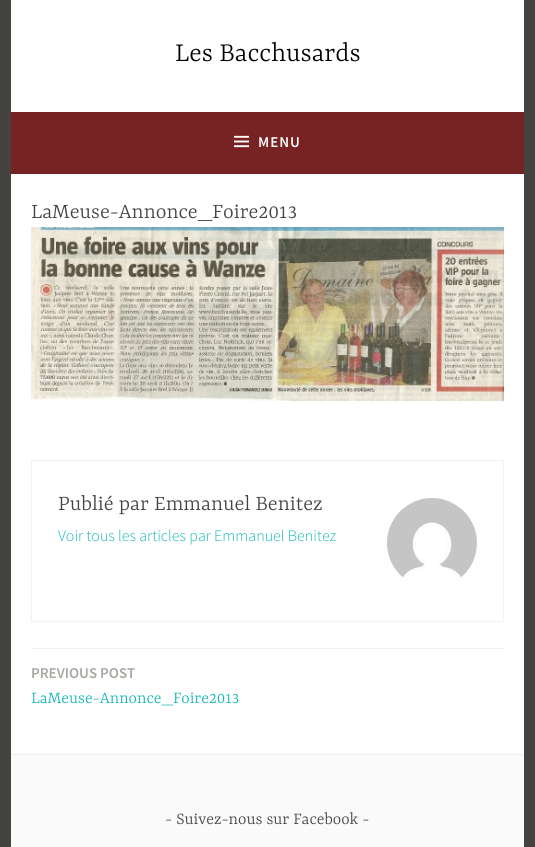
import math
import cairocffi as cairo

surface = cairo.ImageSurface(cairo.FORMAT_RGB24, 535, 847)
cr = cairo.Context(surface)
options = cairo.FontOptions()
options.set_hint_metrics(cairo.HINT_METRICS_OFF)
options.set_hint_style(cairo.HINT_STYLE_NONE)
cr.set_font_options(options)
cr.set_miter_limit(4)


def use_color(code):
    cr.set_source_rgb(*(v / 255 for v in bytes.fromhex(code[-6:])))


def spaced_text(x, y, s, letter, word):
    cr.move_to(x, y)
    for ch in s:
        cr.show_text(ch)
        cr.rel_move_to(letter + word * (ch == ' '), 0)


def picture(path, x, y, w, h):
    cr.save()
    cr.set_source_surface(cairo.ImageSurface.create_from_png(path), x, y)
    cr.rectangle(x, y, w, h)
    cr.fill()
    cr.restore()


use_color("#444340")
cr.paint()
use_color("#ffffff")
cr.rectangle(11, 0, 513, 112)
cr.fill()
cr.select_font_face("Yrsa Light")
cr.set_font_size(29)
use_color("#020202")
cr.move_to(175, 61)
cr.show_text("Les Bacchusards")
use_color("#772323")
cr.rectangle(11, 112, 513, 60)
cr.fill()
use_color("#732222")
cr.rectangle(11, 172, 513, 2)
cr.fill()
picture("img1.png", 234, 135, 15, 13)
cr.select_font_face("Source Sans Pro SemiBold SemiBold")
cr.set_font_size(15)
use_color("#ffffff")
spaced_text(258, 147, "MENU", 1, 0)
cr.rectangle(11, 174, 513, 580)
cr.fill()
cr.select_font_face("Yrsa Light")
cr.set_font_size(23)
use_color("#444340")
cr.move_to(31, 218)
cr.show_text("LaMeuse-Annonce_Foire2013")
picture("img2.png", 31, 227, 473, 174)
cr.rectangle(31.5, 460.5, 472, 161)
use_color("#f2f2f2")
cr.set_line_width(1)
cr.stroke()
use_color("#444340")
cr.move_to(58, 510)
cr.show_text("Publié par Emmanuel Benitez")
picture("img3.png", 387, 498, 90, 80)
cr.select_font_face("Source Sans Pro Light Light")
cr.set_font_size(16)
use_color("#15b6b8")
cr.move_to(58, 541)
cr.show_text("Voir tous les articles par Emmanuel Benitez")
use_color("#f2f2f2")
cr.rectangle(31, 648, 473, 1)
cr.fill()
cr.select_font_face("Source Sans Pro SemiBold SemiBold")
cr.set_font_size(15)
use_color("#a8a6a1")
cr.move_to(31, 678)
cr.show_text("PREVIOUS POST")
cr.select_font_face("Yrsa Light")
cr.set_font_size(18)
use_color("#15b6b8")
cr.move_to(31, 703)
cr.show_text("LaMeuse-Annonce_Foire2013")
use_color("#fafafa")
cr.rectangle(11, 755, 513, 92)
cr.fill()
use_color("#eeeeee")
cr.rectangle(11, 754, 513, 1)
cr.fill()
use_color("#444340")
cr.move_to(165, 824)
cr.show_text("- Suivez-nous sur Facebook -")
surface.write_to_png("result.png")
